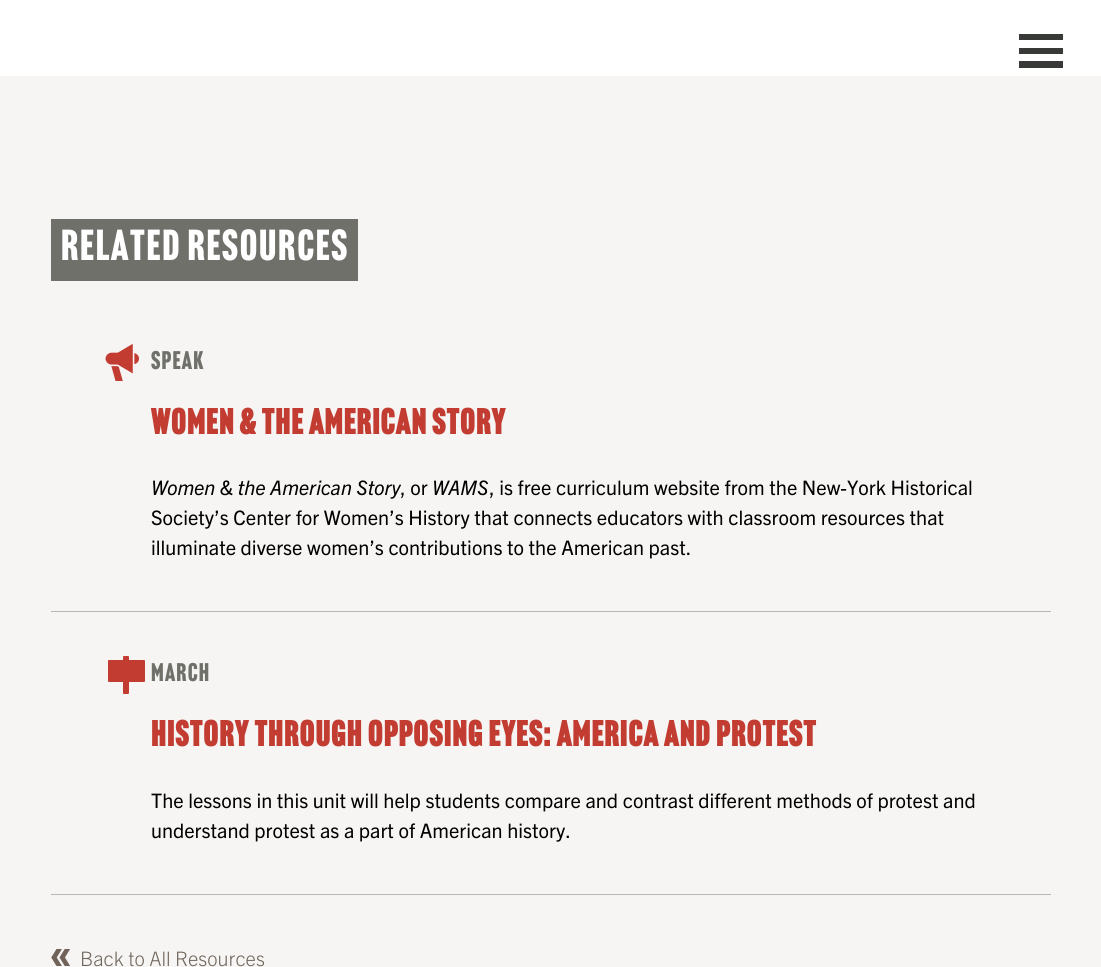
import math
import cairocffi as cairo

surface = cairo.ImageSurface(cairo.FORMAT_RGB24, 1101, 967)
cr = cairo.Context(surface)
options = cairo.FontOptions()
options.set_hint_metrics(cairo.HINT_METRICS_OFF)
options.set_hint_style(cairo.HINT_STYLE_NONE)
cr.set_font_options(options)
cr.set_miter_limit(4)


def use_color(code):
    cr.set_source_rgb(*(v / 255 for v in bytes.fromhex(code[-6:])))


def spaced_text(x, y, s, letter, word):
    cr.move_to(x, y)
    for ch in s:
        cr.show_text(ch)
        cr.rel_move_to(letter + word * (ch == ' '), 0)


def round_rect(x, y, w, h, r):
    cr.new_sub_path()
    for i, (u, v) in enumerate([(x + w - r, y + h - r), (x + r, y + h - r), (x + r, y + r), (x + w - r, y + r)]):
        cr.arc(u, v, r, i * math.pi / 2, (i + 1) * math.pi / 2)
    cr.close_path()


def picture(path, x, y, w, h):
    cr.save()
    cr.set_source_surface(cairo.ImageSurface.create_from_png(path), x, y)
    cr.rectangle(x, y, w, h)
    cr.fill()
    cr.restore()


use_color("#ffffff")
cr.paint()
use_color("#373a36")
cr.rectangle(1019, 34, 44, 6)
cr.fill()
cr.rectangle(1019, 48, 44, 6)
cr.fill()
cr.rectangle(1019, 61, 44, 7)
cr.fill()
use_color("#f6f5f3")
cr.rectangle(0, 76, 1101, 891)
cr.fill()
use_color("#70706b")
cr.rectangle(51, 219, 307, 62)
cr.fill()
cr.select_font_face("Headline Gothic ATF")
cr.set_font_size(42.5)
use_color("#ffffff")
spaced_text(61, 260, "RELATED RESOURCES", 1.75, 0)
use_color("#b7b7b4")
cr.rectangle(51, 611, 1000, 1)
cr.fill()
picture("img1.png", 105, 344, 34, 37)
cr.set_font_size(25)
use_color("#70706b")
spaced_text(151, 369, "SPEAK", 1.25, 0)
cr.select_font_face("Headline Gothic ATF", cairo.FONT_SLANT_NORMAL, cairo.FONT_WEIGHT_BOLD)
cr.set_font_size(35)
use_color("#c23c32")
spaced_text(151, 434, "WOMEN & THE AMERICAN STORY", 1.4, 0)
cr.select_font_face("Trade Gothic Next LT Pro", cairo.FONT_SLANT_ITALIC)
cr.set_font_size(20)
use_color("#000000")
cr.move_to(151, 495)
cr.show_text("Women & the American Story")
cr.select_font_face("Trade Gothic Next LT Pro")
cr.move_to(400, 495)
cr.show_text(", or")
cr.select_font_face("Trade Gothic Next LT Pro", cairo.FONT_SLANT_ITALIC)
cr.move_to(432, 495)
cr.show_text("WAMS")
cr.select_font_face("Trade Gothic Next LT Pro")
cr.move_to(489, 495)
cr.show_text(", is free curriculum website from the New-York Historical")
cr.move_to(151, 525)
cr.show_text("Society’s Center for Women’s History that connects educators with classroom resources that")
cr.move_to(151, 555)
cr.show_text("illuminate diverse women’s contributions to the American past.")
use_color("#b7b7b4")
cr.rectangle(51, 894, 1000, 1)
cr.fill()
use_color("#c23c32")
round_rect(108, 660, 37, 22, 1)
cr.fill()
round_rect(123, 656, 6, 38, 1)
cr.fill()
cr.select_font_face("Headline Gothic ATF")
cr.set_font_size(25)
use_color("#70706b")
spaced_text(151, 681, "MARCH", 1.25, 0)
cr.select_font_face("Headline Gothic ATF", cairo.FONT_SLANT_NORMAL, cairo.FONT_WEIGHT_BOLD)
cr.set_font_size(35)
use_color("#c23c32")
spaced_text(151, 746, "HISTORY THROUGH OPPOSING EYES: AMERICA AND PROTEST", 1.4, 0)
cr.select_font_face("Trade Gothic Next LT Pro")
cr.set_font_size(20)
use_color("#000000")
cr.move_to(151, 808)
cr.show_text("The lessons in this unit will help students compare and contrast different methods of protest and")
cr.move_to(151, 838)
cr.show_text("understand protest as a part of American history.")
picture("img2.png", 51, 949, 19, 17)
cr.select_font_face("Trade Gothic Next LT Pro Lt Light")
use_color("#6f645a")
cr.move_to(80, 966)
cr.show_text("Back to All Resources")
surface.write_to_png("result.png")
